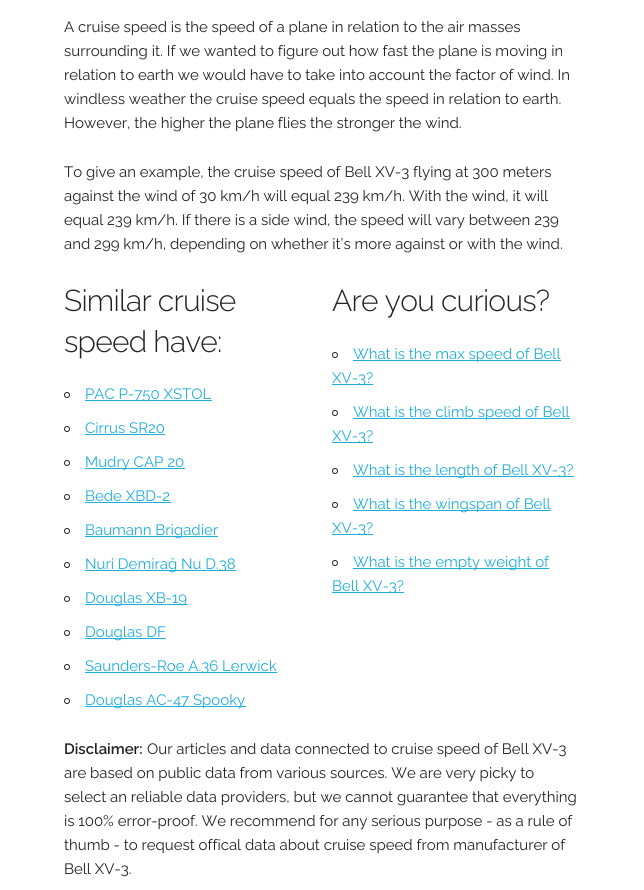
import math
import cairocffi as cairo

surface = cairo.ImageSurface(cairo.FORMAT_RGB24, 644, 890)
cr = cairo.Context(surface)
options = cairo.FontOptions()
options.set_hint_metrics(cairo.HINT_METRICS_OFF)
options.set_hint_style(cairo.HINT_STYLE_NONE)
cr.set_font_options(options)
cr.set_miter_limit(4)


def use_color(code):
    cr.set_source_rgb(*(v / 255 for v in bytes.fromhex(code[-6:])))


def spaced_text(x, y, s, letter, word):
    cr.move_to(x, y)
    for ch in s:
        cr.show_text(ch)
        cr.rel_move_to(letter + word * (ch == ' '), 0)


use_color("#ffffff")
cr.paint()
cr.select_font_face("Raleway")
cr.set_font_size(15)
use_color("#222222")
cr.move_to(64, 32)
cr.show_text("A cruise speed is the speed of a plane in relation to the air masses")
cr.move_to(64, 56)
cr.show_text("surrounding it. If we wanted to figure out how fast the plane is moving in")
cr.move_to(64, 80)
cr.show_text("relation to earth we would have to take into account the factor of wind. In")
cr.move_to(64, 104)
cr.show_text("windless weather the cruise speed equals the speed in relation to earth.")
cr.move_to(64, 128)
cr.show_text("However, the higher the plane flies the stronger the wind.")
cr.move_to(64, 177)
cr.show_text("To give an example, the cruise speed of Bell XV-3 flying at 300 meters")
cr.move_to(64, 201)
cr.show_text("against the wind of 30 km/h will equal 239 km/h. With the wind, it will")
cr.move_to(64, 225)
cr.show_text("equal 239 km/h. If there is a side wind, the speed will vary between 239")
cr.move_to(64, 249)
cr.show_text("and 299 km/h, depending on whether it’s more against or with the wind.")
cr.select_font_face("Raleway Light")
cr.set_font_size(30)
spaced_text(64, 311, "Similar cruise", -0.75, 0)
spaced_text(64, 352, "speed have:", -0.75, 0)
cr.new_path()
cr.arc(67, 395, 2.5, 0, 2 * math.pi)
cr.set_line_width(1)
cr.stroke()
use_color("#1eaedb")
cr.rectangle(85, 400, 127, 1)
cr.fill()
cr.select_font_face("Raleway")
cr.set_font_size(15)
cr.move_to(85, 399)
cr.show_text("PAC P-750 XSTOL")
cr.new_path()
cr.arc(67, 429, 2.5, 0, 2 * math.pi)
use_color("#222222")
cr.stroke()
use_color("#1eaedb")
cr.move_to(85, 433)
cr.show_text("Cirrus SR20")
cr.rectangle(85, 434, 80, 1)
cr.fill()
cr.arc(67, 463, 2.5, 0, 2 * math.pi)
use_color("#222222")
cr.stroke()
use_color("#1eaedb")
cr.rectangle(85, 468, 100, 1)
cr.fill()
cr.move_to(85, 467)
cr.show_text("Mudry CAP 20")
cr.new_path()
cr.arc(67, 497, 2.5, 0, 2 * math.pi)
use_color("#222222")
cr.stroke()
use_color("#1eaedb")
cr.move_to(85, 501)
cr.show_text("Bede XBD-2")
cr.rectangle(85, 502, 86, 1)
cr.fill()
cr.arc(67, 531, 2.5, 0, 2 * math.pi)
use_color("#222222")
cr.stroke()
use_color("#1eaedb")
cr.rectangle(85, 536, 133, 1)
cr.fill()
cr.move_to(85, 535)
cr.show_text("Baumann Brigadier")
cr.new_path()
cr.arc(67, 565, 2.5, 0, 2 * math.pi)
use_color("#222222")
cr.stroke()
use_color("#1eaedb")
cr.rectangle(85, 570, 151, 1)
cr.fill()
cr.move_to(85, 569)
cr.show_text("Nuri Demirağ Nu D.38")
cr.new_path()
cr.arc(67, 599, 2.5, 0, 2 * math.pi)
use_color("#222222")
cr.stroke()
use_color("#1eaedb")
cr.rectangle(85, 604, 103, 1)
cr.fill()
cr.move_to(85, 603)
cr.show_text("Douglas XB-19")
cr.new_path()
cr.arc(67, 633, 2.5, 0, 2 * math.pi)
use_color("#222222")
cr.stroke()
use_color("#1eaedb")
cr.rectangle(85, 638, 81, 1)
cr.fill()
cr.move_to(85, 637)
cr.show_text("Douglas DF")
cr.new_path()
cr.arc(67, 667, 2.5, 0, 2 * math.pi)
use_color("#222222")
cr.stroke()
use_color("#1eaedb")
cr.rectangle(85, 672, 192, 1)
cr.fill()
cr.move_to(85, 671)
cr.show_text("Saunders-Roe A.36 Lerwick")
cr.new_path()
cr.arc(67, 701, 2.5, 0, 2 * math.pi)
use_color("#222222")
cr.stroke()
use_color("#1eaedb")
cr.rectangle(85, 706, 161, 1)
cr.fill()
cr.move_to(85, 705)
cr.show_text("Douglas AC-47 Spooky")
cr.select_font_face("Raleway Light")
cr.set_font_size(30)
use_color("#222222")
spaced_text(332, 311, "Are you curious?", -0.75, 0)
cr.new_path()
cr.arc(335, 355, 2.5, 0, 2 * math.pi)
cr.stroke()
use_color("#1eaedb")
cr.rectangle(353, 360, 208, 1)
cr.fill()
cr.select_font_face("Raleway")
cr.set_font_size(15)
cr.move_to(353, 359)
cr.show_text("What is the max speed of Bell")
cr.rectangle(332, 384, 41, 1)
cr.fill()
cr.move_to(332, 383)
cr.show_text("XV-3?")
cr.new_path()
cr.arc(335, 413, 2.5, 0, 2 * math.pi)
use_color("#222222")
cr.stroke()
use_color("#1eaedb")
cr.rectangle(353, 418, 217, 1)
cr.fill()
cr.move_to(353, 417)
cr.show_text("What is the climb speed of Bell")
cr.rectangle(332, 442, 41, 1)
cr.fill()
cr.move_to(332, 441)
cr.show_text("XV-3?")
cr.new_path()
cr.arc(335, 471, 2.5, 0, 2 * math.pi)
use_color("#222222")
cr.stroke()
use_color("#1eaedb")
cr.rectangle(353, 476, 221, 1)
cr.fill()
cr.move_to(353, 475)
cr.show_text("What is the length of Bell XV-3?")
cr.new_path()
cr.arc(335, 505, 2.5, 0, 2 * math.pi)
use_color("#222222")
cr.stroke()
use_color("#1eaedb")
cr.rectangle(353, 510, 198, 1)
cr.fill()
cr.move_to(353, 509)
cr.show_text("What is the wingspan of Bell")
cr.rectangle(332, 534, 41, 1)
cr.fill()
cr.move_to(332, 533)
cr.show_text("XV-3?")
cr.new_path()
cr.arc(335, 563, 2.5, 0, 2 * math.pi)
use_color("#222222")
cr.stroke()
use_color("#1eaedb")
cr.rectangle(353, 568, 196, 1)
cr.fill()
cr.move_to(353, 567)
cr.show_text("What is the empty weight of")
cr.rectangle(332, 592, 72, 1)
cr.fill()
cr.move_to(332, 591)
cr.show_text("Bell XV-3?")
cr.select_font_face("Raleway SemiBold")
use_color("#222222")
cr.move_to(64, 754)
cr.show_text("Disclaimer:")
cr.select_font_face("Raleway")
cr.move_to(147, 754)
cr.show_text("Our articles and data connected to cruise speed of Bell XV-3")
cr.move_to(64, 778)
cr.show_text("are based on public data from various sources. We are very picky to")
cr.move_to(64, 802)
cr.show_text("select an reliable data providers, but we cannot guarantee that everything")
cr.move_to(64, 826)
cr.show_text("is 100% error-proof. We recommend for any serious purpose - as a rule of")
cr.move_to(64, 850)
cr.show_text("thumb - to request offical data about cruise speed from manufacturer of")
cr.move_to(64, 874)
cr.show_text("Bell XV-3.")
surface.write_to_png("result.png")
